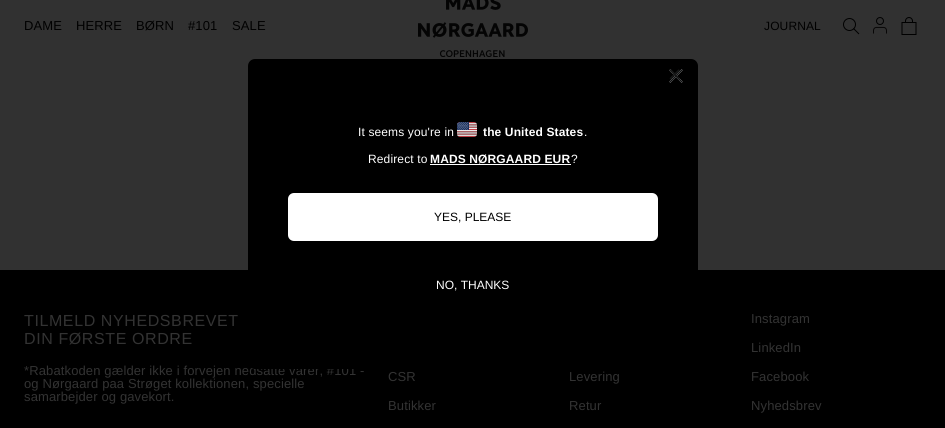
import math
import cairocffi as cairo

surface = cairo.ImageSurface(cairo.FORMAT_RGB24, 945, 428)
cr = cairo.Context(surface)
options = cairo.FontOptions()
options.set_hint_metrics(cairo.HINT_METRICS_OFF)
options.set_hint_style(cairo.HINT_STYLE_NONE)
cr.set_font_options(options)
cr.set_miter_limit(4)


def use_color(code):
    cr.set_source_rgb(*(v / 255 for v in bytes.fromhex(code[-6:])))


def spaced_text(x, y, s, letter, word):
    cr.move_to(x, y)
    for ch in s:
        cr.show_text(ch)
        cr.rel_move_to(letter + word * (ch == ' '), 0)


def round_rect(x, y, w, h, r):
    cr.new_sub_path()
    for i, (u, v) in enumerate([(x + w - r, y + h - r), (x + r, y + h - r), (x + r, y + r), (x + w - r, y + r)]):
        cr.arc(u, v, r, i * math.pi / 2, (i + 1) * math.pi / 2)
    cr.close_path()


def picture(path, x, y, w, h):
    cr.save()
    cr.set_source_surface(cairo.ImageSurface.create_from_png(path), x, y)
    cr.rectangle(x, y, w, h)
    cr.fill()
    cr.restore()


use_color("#313131")
cr.paint()
cr.select_font_face("Liberation Sans")
cr.set_font_size(13)
use_color("#000000")
spaced_text(24, 30, "DAME", 0.13, 0)
spaced_text(76, 30, "HERRE", 0.13, 0)
spaced_text(136, 30, "BØRN", 0.13, 0)
spaced_text(188, 30, "#101", 0.13, 0)
spaced_text(232, 30, "SALE", 0.13, 0)
picture("img1.png", 418, 0, 110, 57)
cr.set_font_size(12)
spaced_text(764, 30, "JOURNAL", 0.13, 0)
cr.new_path()
cr.arc(849.5, 24.5, 6, 0, 2 * math.pi)
cr.set_line_width(1)
cr.stroke()
cr.new_path()
cr.move_to(853.5, 28.5)
cr.line_to(859, 34)
cr.stroke()
picture("img2.png", 873, 17, 14, 17)
picture("img3.png", 901, 17, 16, 18)
cr.rectangle(0, 270, 945, 158)
cr.fill()
cr.set_font_size(13)
use_color("#333333")
spaced_text(24, 375, "*Rabatkoden gælder ikke i forvejen nedsatte varer, #101 -", 0.13, 0)
use_color("#000000")
round_rect(248, 59, 450, 310, 7)
cr.fill()
picture("img4.png", 669, 69, 14, 14)
cr.set_font_size(23)
use_color("#161717")
spaced_text(668, 82, "×", 0.13, 0)
cr.set_font_size(12)
use_color("#ffffff")
spaced_text(358, 136, "It seems you're in", 0.13, 0)
picture("img5.png", 457, 122, 20, 15)
cr.select_font_face("Liberation Sans", cairo.FONT_SLANT_NORMAL, cairo.FONT_WEIGHT_BOLD)
spaced_text(483, 136, "the United States", 0.13, 0)
cr.select_font_face("Liberation Sans")
spaced_text(584, 136, ".", 0.13, 0)
spaced_text(368, 163, "Redirect to", 0.13, 0)
cr.select_font_face("Liberation Sans", cairo.FONT_SLANT_NORMAL, cairo.FONT_WEIGHT_BOLD)
spaced_text(430, 163, "MADS NØRGAARD EUR", 0.13, 0)
cr.rectangle(430, 164, 141, 1)
cr.fill()
cr.select_font_face("Liberation Sans")
spaced_text(571, 163, "?", 0.13, 0)
round_rect(288, 193, 370, 48, 6)
cr.fill()
use_color("#000000")
cr.move_to(434, 221)
cr.show_text("YES, PLEASE")
use_color("#ffffff")
cr.move_to(436, 289)
cr.show_text("NO, THANKS")
cr.set_font_size(16)
use_color("#333333")
spaced_text(24, 326, "TILMELD NYHEDSBREVET", 0.6, 0)
spaced_text(24, 344, "DIN FØRSTE ORDRE", 0.6, 0)
cr.set_font_size(13)
spaced_text(24, 388, "og Nørgaard paa Strøget kollektionen, specielle", 0.13, 0)
spaced_text(24, 401, "samarbejder og gavekort.", 0.13, 0)
spaced_text(388, 381, "CSR", 0.13, 0)
spaced_text(388, 410, "Butikker", 0.13, 0)
spaced_text(569, 381, "Levering", 0.13, 0)
spaced_text(569, 410, "Retur", 0.13, 0)
spaced_text(751, 323, "Instagram", 0.13, 0)
spaced_text(751, 352, "LinkedIn", 0.13, 0)
spaced_text(751, 381, "Facebook", 0.13, 0)
spaced_text(751, 410, "Nyhedsbrev", 0.13, 0)
surface.write_to_png("result.png")
